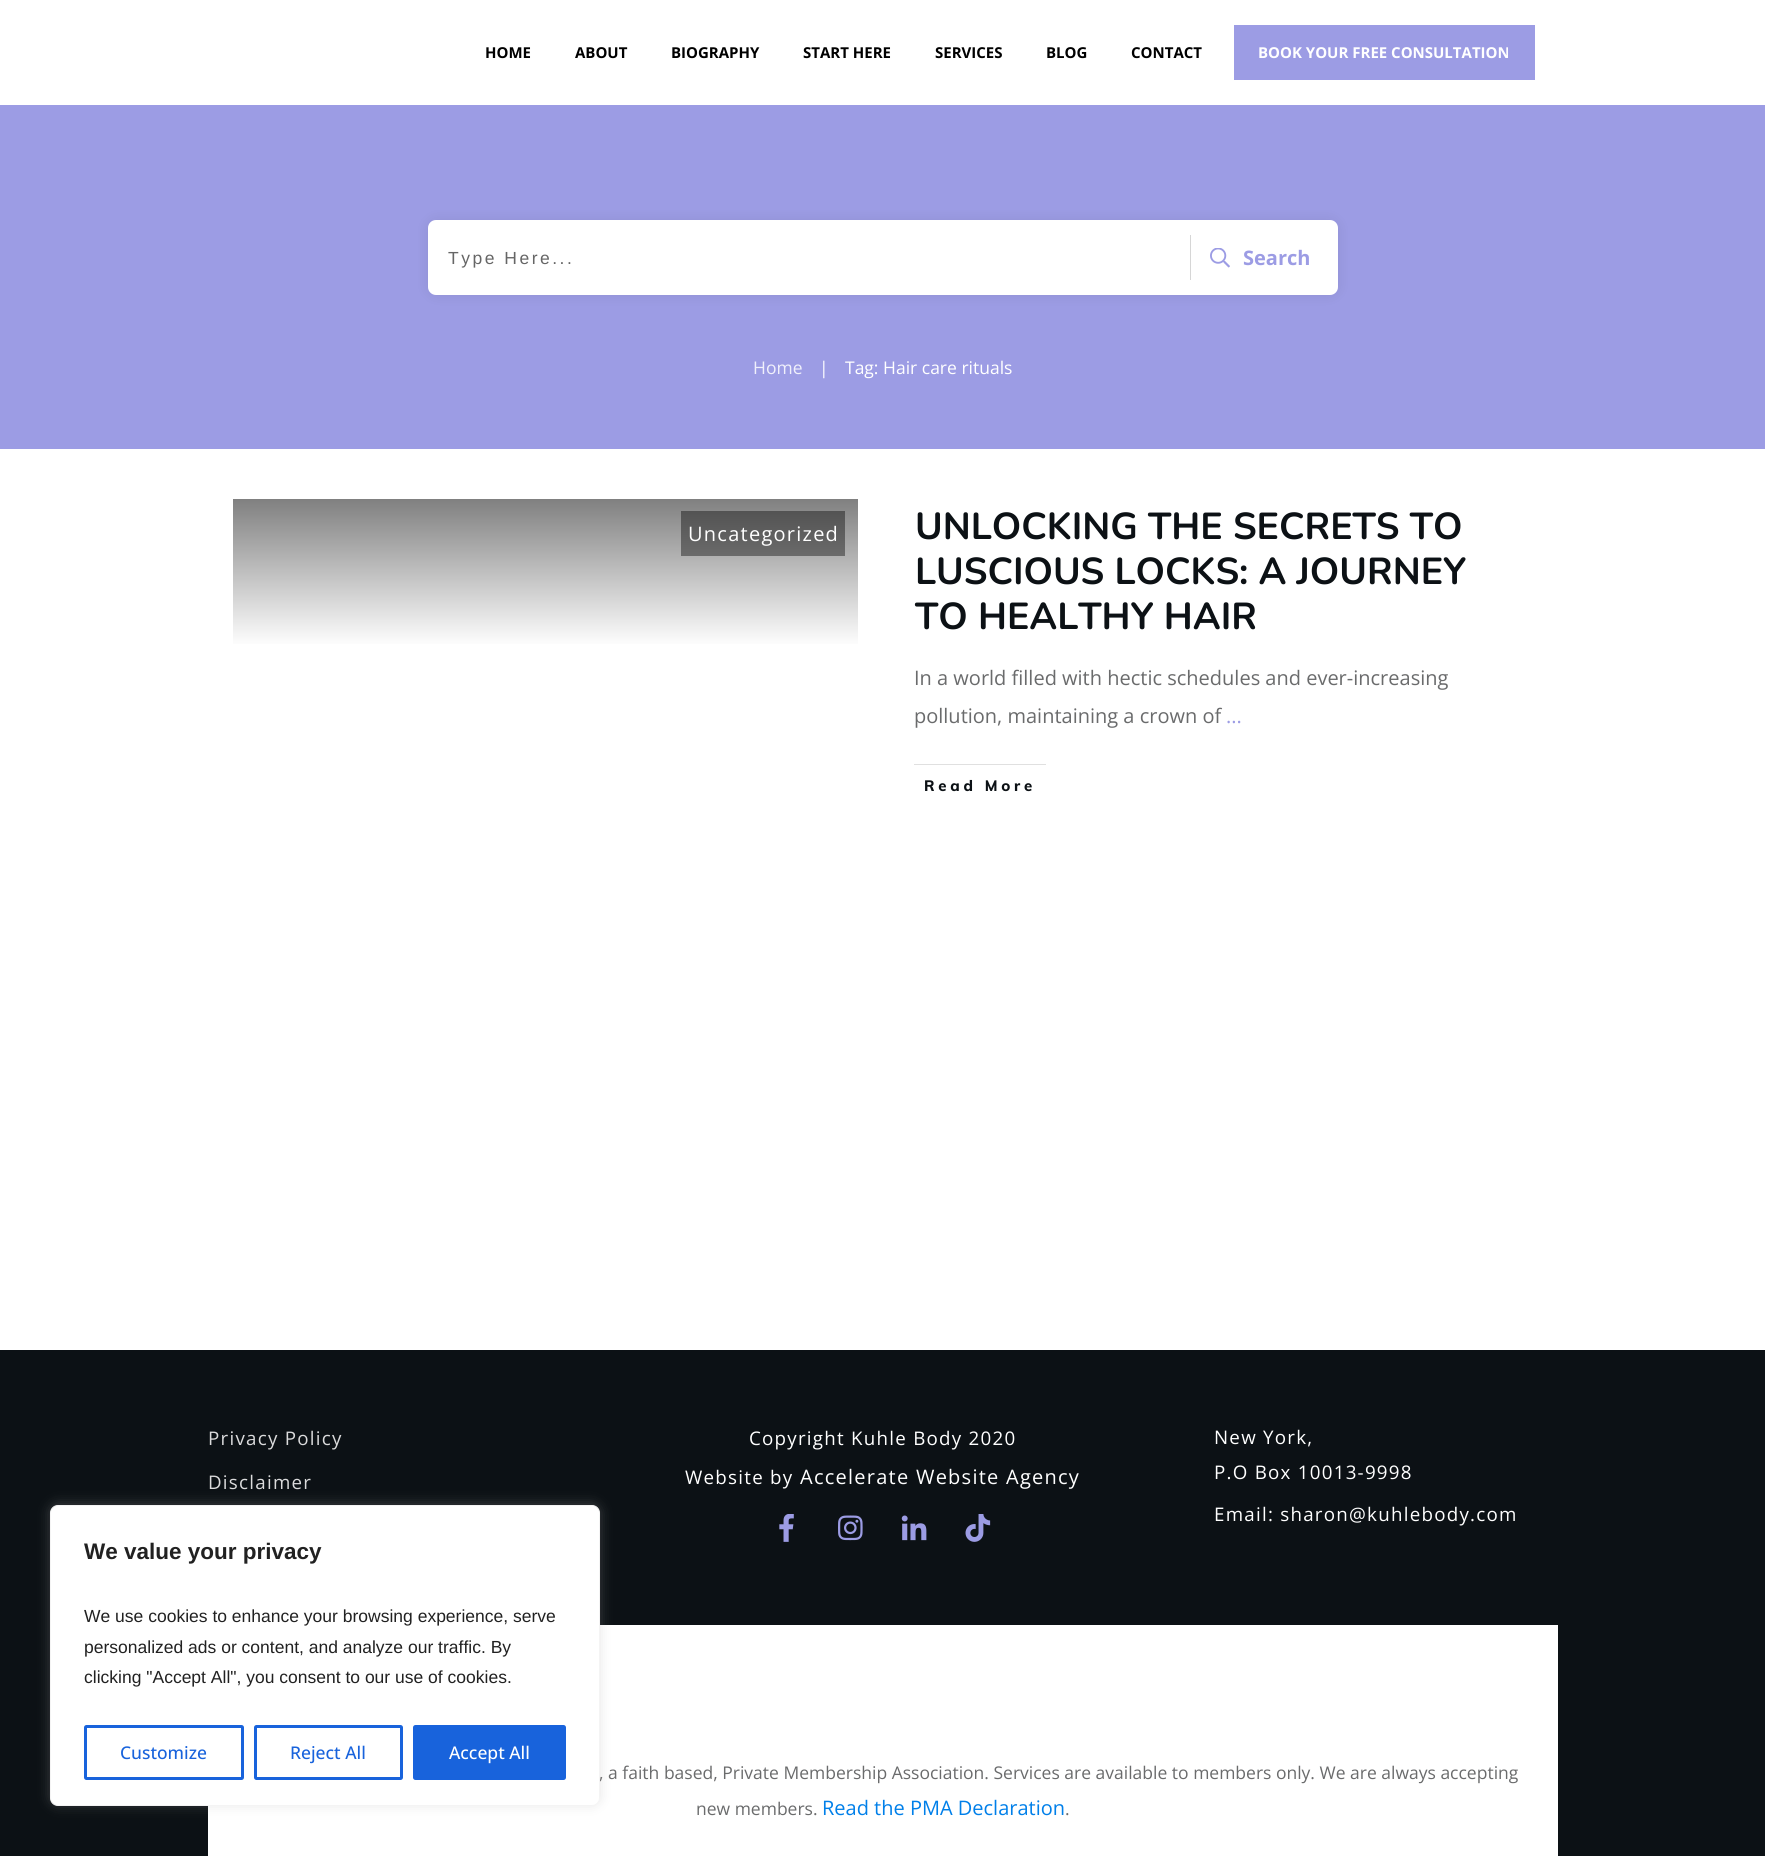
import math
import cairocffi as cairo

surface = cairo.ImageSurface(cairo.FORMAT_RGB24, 1765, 1856)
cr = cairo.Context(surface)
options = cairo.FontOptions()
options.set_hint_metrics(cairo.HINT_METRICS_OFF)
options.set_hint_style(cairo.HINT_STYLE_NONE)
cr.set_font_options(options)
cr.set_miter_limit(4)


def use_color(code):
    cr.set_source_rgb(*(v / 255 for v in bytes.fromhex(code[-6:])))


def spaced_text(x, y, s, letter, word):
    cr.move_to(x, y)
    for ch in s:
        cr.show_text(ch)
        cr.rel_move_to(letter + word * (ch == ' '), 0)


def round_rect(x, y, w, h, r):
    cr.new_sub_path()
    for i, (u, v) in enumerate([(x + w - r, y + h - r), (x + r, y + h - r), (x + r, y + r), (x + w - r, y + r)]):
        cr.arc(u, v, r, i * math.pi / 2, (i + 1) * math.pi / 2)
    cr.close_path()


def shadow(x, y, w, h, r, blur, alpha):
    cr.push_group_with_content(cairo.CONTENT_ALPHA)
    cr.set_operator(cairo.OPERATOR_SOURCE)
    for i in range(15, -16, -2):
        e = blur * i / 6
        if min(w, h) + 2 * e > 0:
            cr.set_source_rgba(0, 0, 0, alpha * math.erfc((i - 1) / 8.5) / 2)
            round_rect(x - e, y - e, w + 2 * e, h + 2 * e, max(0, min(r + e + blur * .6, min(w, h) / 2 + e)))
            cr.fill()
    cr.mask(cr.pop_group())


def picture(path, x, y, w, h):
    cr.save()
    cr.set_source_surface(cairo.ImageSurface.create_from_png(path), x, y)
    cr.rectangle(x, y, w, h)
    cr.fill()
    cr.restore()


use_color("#ffffff")
cr.paint()
cr.select_font_face("Open Sans", cairo.FONT_SLANT_NORMAL, cairo.FONT_WEIGHT_BOLD)
cr.set_font_size(15)
use_color("#000000")
cr.move_to(485, 58)
cr.show_text("HOME")
cr.move_to(575, 58)
cr.show_text("ABOUT")
cr.move_to(671, 58)
cr.show_text("BIOGRAPHY")
cr.move_to(803, 58)
cr.show_text("START HERE")
cr.move_to(935, 58)
cr.show_text("SERVICES")
cr.move_to(1046, 58)
cr.show_text("BLOG")
cr.move_to(1131, 58)
cr.show_text("CONTACT")
use_color("#9c9ce4")
cr.rectangle(1234, 25, 301, 55)
cr.fill()
use_color("#ffffff")
cr.move_to(1258, 58)
cr.show_text("BOOK YOUR FREE CONSULTATION")
use_color("#9c9ce4")
cr.rectangle(0, 105, 1765, 344)
cr.fill()
use_color("#000000")
shadow(428, 220, 910, 75, 8, 7, 0.08)
use_color("#ffffff")
round_rect(428, 220, 910, 75, 8)
cr.fill()
cr.select_font_face("Liberation Sans")
cr.set_font_size(17.5)
use_color("#666666")
spaced_text(448, 264, "Type Here...", 2.5, 0)
use_color("#d6d6d6")
cr.rectangle(1190, 235, 1, 45)
cr.fill()
picture("img1.png", 1210, 248, 20, 20)
cr.select_font_face("Open Sans", cairo.FONT_SLANT_NORMAL, cairo.FONT_WEIGHT_BOLD)
cr.set_font_size(20)
use_color("#9c9ce4")
cr.move_to(1243, 265)
cr.show_text("Search")
cr.select_font_face("Open Sans")
cr.set_font_size(17.5)
use_color("#f0f0fb")
cr.move_to(753, 374)
cr.show_text("Home")
use_color("#ffffff")
cr.move_to(819, 374)
cr.show_text("|")
cr.move_to(845, 374)
cr.show_text("Tag: Hair care rituals")
gradient = cairo.LinearGradient(545, 499, 545, 868)
gradient.add_color_stop_rgba(0, 0.502, 0.502, 0.502, 1)
gradient.add_color_stop_rgba(0.4, 1, 1, 1, 1)
cr.set_source(gradient)
cr.rectangle(233, 499, 625, 145)
cr.fill()
gradient = cairo.LinearGradient(545, 499, 545, 868)
gradient.add_color_stop_rgba(0, 0.302, 0.302, 0.302, 1)
gradient.add_color_stop_rgba(0.4, 0.6, 0.6, 0.6, 1)
cr.set_source(gradient)
cr.rectangle(681, 511, 164, 45)
cr.fill()
cr.set_font_size(20)
use_color("#ffffff")
spaced_text(688, 541, "Uncategorized", 1.25, 0)
cr.select_font_face("Nunito", cairo.FONT_SLANT_NORMAL, cairo.FONT_WEIGHT_BOLD)
cr.set_font_size(37.5)
use_color("#0c1115")
cr.move_to(915, 539)
cr.show_text("UNLOCKING THE SECRETS TO")
cr.move_to(915, 584)
cr.show_text("LUSCIOUS LOCKS: A JOURNEY")
cr.move_to(915, 629)
cr.show_text("TO HEALTHY HAIR")
cr.select_font_face("Open Sans")
cr.set_font_size(20)
use_color("#6a6b6c")
cr.move_to(914, 685)
cr.show_text("In a world filled with hectic schedules and ever-increasing")
cr.move_to(914, 723)
cr.show_text("pollution, maintaining a crown of")
use_color("#9c9ce4")
cr.move_to(1226, 723)
cr.show_text("...")
use_color("#e0e0e0")
cr.rectangle(914, 764, 132, 1)
cr.fill()
cr.select_font_face("Muli ExtraBold")
cr.set_font_size(15)
use_color("#0c1115")
spaced_text(924, 791, "Read More", 3.75, 0)
cr.rectangle(0, 1350, 1765, 506)
cr.fill()
cr.select_font_face("Open Sans")
cr.set_font_size(18.75)
use_color("#dbdbdc")
spaced_text(208, 1445, "Privacy Policy", 1.25, 0)
spaced_text(208, 1489, "Disclaimer", 1.25, 0)
use_color("#ffffff")
spaced_text(749, 1445, "Copyright Kuhle Body 2020", 1.25, 0)
spaced_text(685, 1484, "Website by", 1.25, 0)
cr.set_font_size(20)
spaced_text(800, 1484, "Accelerate Website Agency", 1.25, 0)
picture("img2.png", 779, 1514, 15, 28)
picture("img3.png", 838, 1515, 25, 26)
picture("img4.png", 901, 1515, 26, 26)
picture("img5.png", 965, 1514, 26, 28)
cr.set_font_size(18.75)
spaced_text(1214, 1444, "New York,", 1.25, 0)
spaced_text(1214, 1479, "P.O Box 10013-9998", 1.25, 0)
spaced_text(1214, 1521, "Email: sharon@kuhlebody.com", 1.25, 0)
cr.rectangle(208, 1625, 1350, 231)
cr.fill()
cr.set_font_size(17.5)
use_color("#6a6b6c")
cr.move_to(599, 1779)
cr.show_text(", a faith based, Private Membership Association. Services are available to members only. We are always accepting")
cr.move_to(696, 1815)
cr.show_text("new members.")
cr.set_font_size(20)
use_color("#007fe9")
cr.move_to(822, 1815)
cr.show_text("Read the PMA Declaration")
cr.set_font_size(17.5)
use_color("#6a6b6c")
cr.move_to(1065, 1815)
cr.show_text(".")
use_color("#acabab")
shadow(50, 1504, 550, 301, 8, 6, 0.3)
use_color("#ffffff")
round_rect(50.5, 1505.5, 549, 300, 7.5)
cr.fill_preserve()
use_color("#f4f4f4")
cr.set_line_width(1)
cr.stroke()
cr.select_font_face("Liberation Sans", cairo.FONT_SLANT_NORMAL, cairo.FONT_WEIGHT_BOLD)
cr.set_font_size(22.5)
use_color("#212121")
cr.move_to(84, 1559)
cr.show_text("We value your privacy")
cr.select_font_face("Liberation Sans")
cr.set_font_size(17.5)
cr.move_to(84, 1622)
cr.show_text("We use cookies to enhance your browsing experience, serve")
cr.move_to(84, 1653)
cr.show_text("personalized ads or content, and analyze our traffic. By")
cr.move_to(84, 1683)
cr.show_text("clicking \"Accept All\", you consent to our use of cookies.")
round_rect(85.5, 1726.5, 157, 52, 1)
use_color("#1863dc")
cr.set_line_width(3)
cr.stroke()
cr.select_font_face("Open Sans Medium")
cr.move_to(120, 1759)
cr.show_text("Customize")
round_rect(255.5, 1726.5, 146, 52, 1)
cr.stroke()
cr.move_to(290, 1759)
cr.show_text("Reject All")
round_rect(414.5, 1726.5, 150, 52, 1)
cr.fill_preserve()
cr.stroke()
use_color("#ffffff")
cr.move_to(449, 1759)
cr.show_text("Accept All")
surface.write_to_png("result.png")
